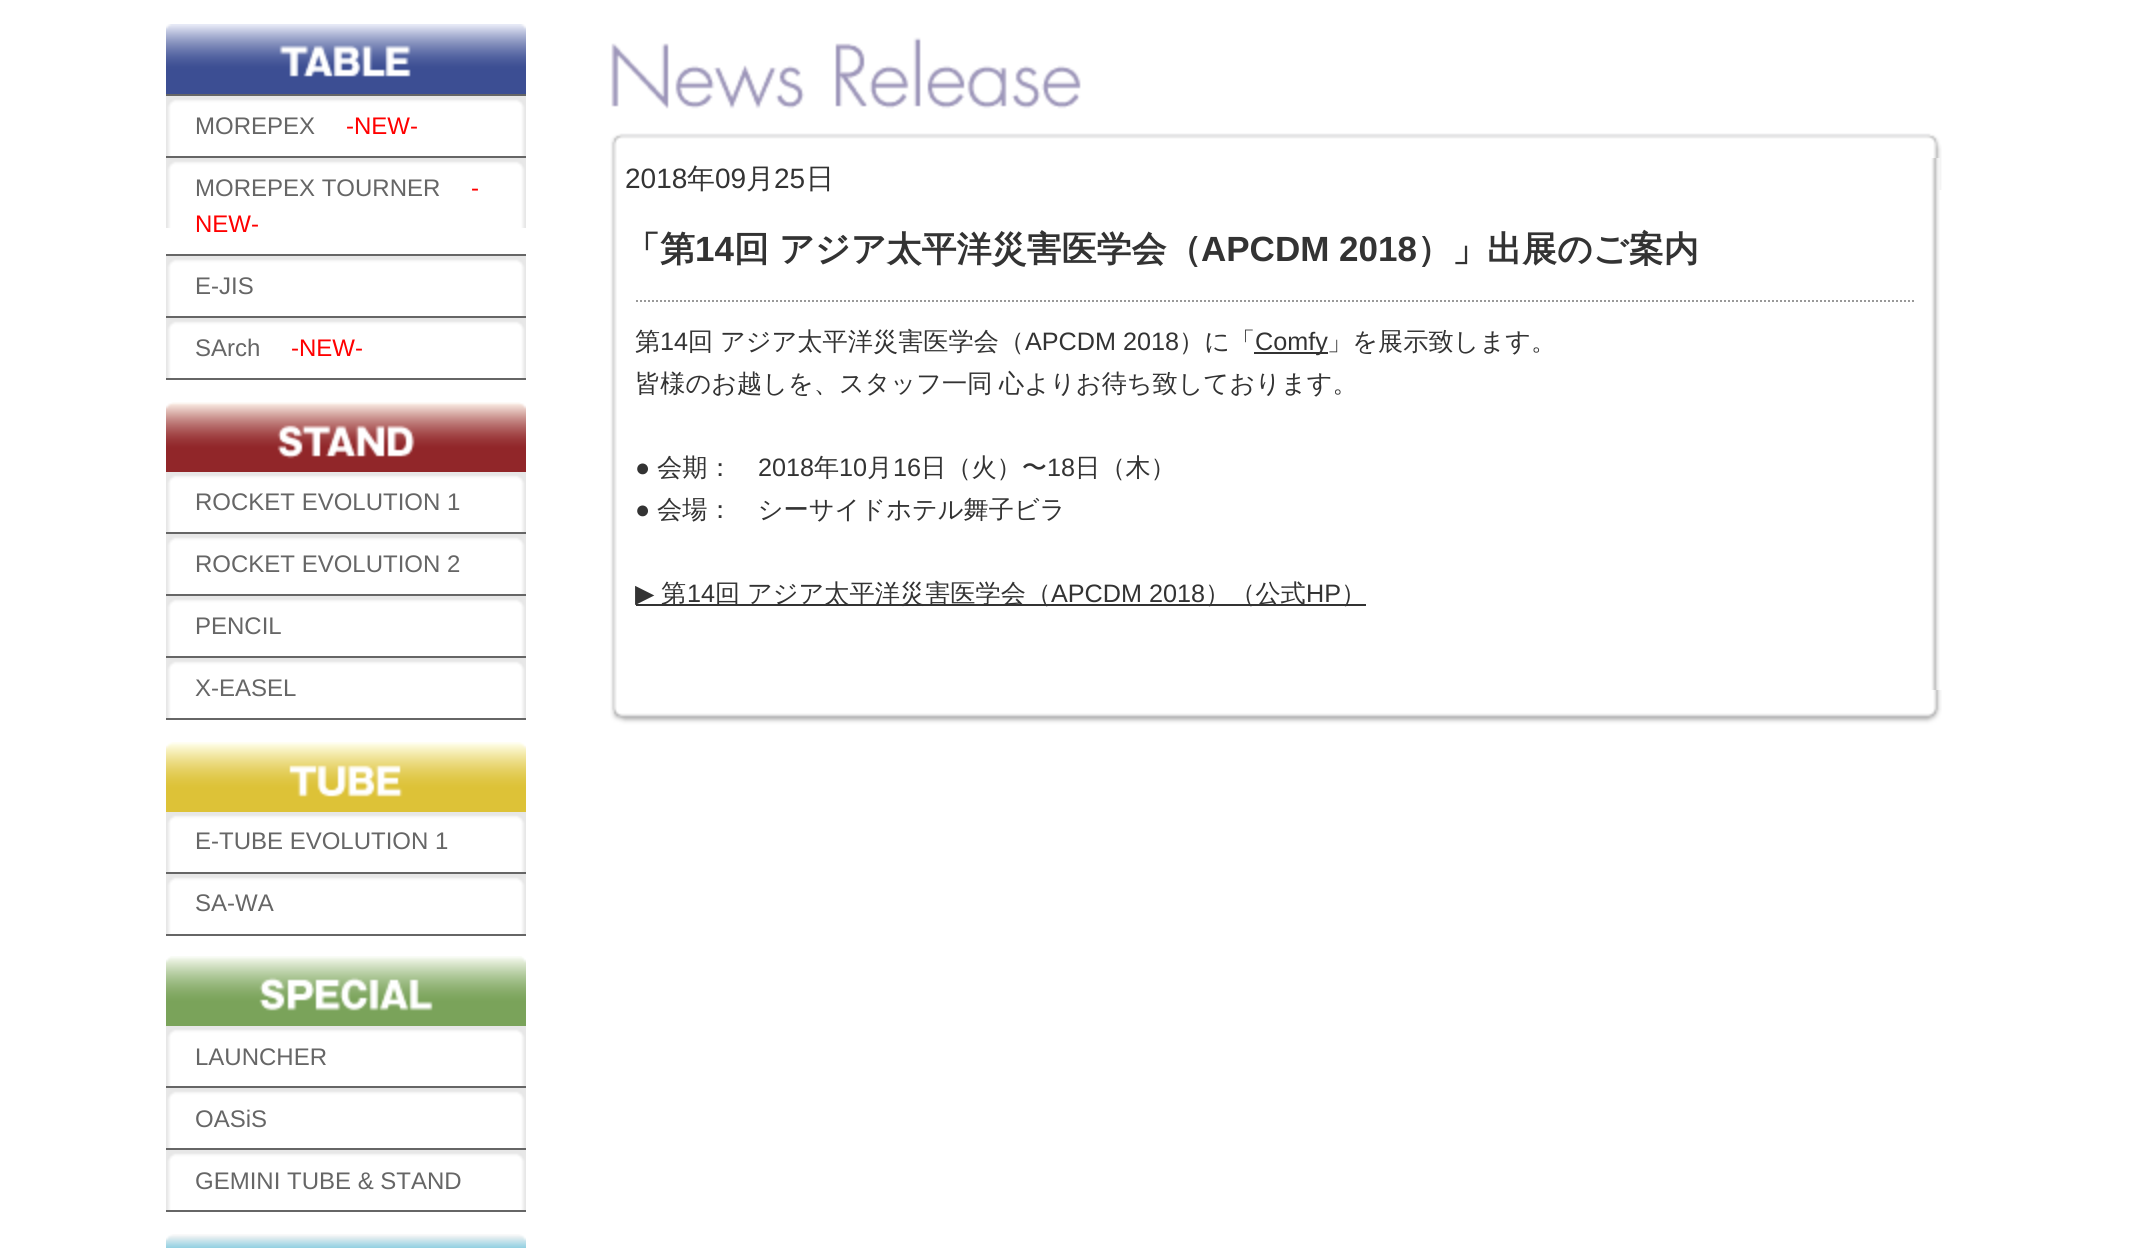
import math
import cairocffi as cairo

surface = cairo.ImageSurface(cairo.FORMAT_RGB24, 2130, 1248)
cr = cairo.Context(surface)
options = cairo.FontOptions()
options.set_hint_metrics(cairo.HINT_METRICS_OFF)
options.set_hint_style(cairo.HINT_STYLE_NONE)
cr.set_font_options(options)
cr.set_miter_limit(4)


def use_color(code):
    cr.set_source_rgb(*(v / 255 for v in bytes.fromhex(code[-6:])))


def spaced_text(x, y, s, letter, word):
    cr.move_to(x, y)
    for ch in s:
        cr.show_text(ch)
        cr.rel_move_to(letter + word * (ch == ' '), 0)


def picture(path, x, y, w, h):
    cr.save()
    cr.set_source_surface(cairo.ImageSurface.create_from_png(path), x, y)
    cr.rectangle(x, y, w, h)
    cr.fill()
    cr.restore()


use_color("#ffffff")
cr.paint()
picture("img1.png", 166, 24, 360, 70)
use_color("#666666")
cr.rectangle(166, 94, 360, 2)
cr.fill()
cr.rectangle(166, 156, 360, 2)
cr.fill()
picture("img2.png", 166, 96, 360, 60)
cr.select_font_face("Liberation Sans")
cr.set_font_size(24)
cr.move_to(195, 134)
cr.show_text("MOREPEX")
use_color("#ff0000")
cr.move_to(346, 134)
cr.show_text("-NEW-")
use_color("#666666")
cr.rectangle(166, 254, 360, 2)
cr.fill()
picture("img3.png", 166, 158, 360, 70)
cr.move_to(195, 196)
cr.show_text("MOREPEX TOURNER")
use_color("#ff0000")
cr.move_to(471, 196)
cr.show_text("-")
cr.move_to(195, 232)
cr.show_text("NEW-")
use_color("#666666")
cr.rectangle(166, 316, 360, 2)
cr.fill()
picture("img2.png", 166, 256, 360, 60)
cr.move_to(195, 294)
cr.show_text("E-JIS")
cr.rectangle(166, 378, 360, 2)
cr.fill()
picture("img2.png", 166, 318, 360, 60)
cr.move_to(195, 356)
cr.show_text("SArch")
use_color("#ff0000")
cr.move_to(291, 356)
cr.show_text("-NEW-")
picture("img4.png", 166, 402, 360, 70)
use_color("#666666")
cr.rectangle(166, 532, 360, 2)
cr.fill()
picture("img2.png", 166, 472, 360, 60)
cr.move_to(195, 510)
cr.show_text("ROCKET EVOLUTION 1")
cr.rectangle(166, 594, 360, 2)
cr.fill()
picture("img2.png", 166, 534, 360, 60)
cr.move_to(195, 572)
cr.show_text("ROCKET EVOLUTION 2")
cr.rectangle(166, 656, 360, 2)
cr.fill()
picture("img2.png", 166, 596, 360, 60)
cr.move_to(195, 634)
cr.show_text("PENCIL")
cr.rectangle(166, 718, 360, 2)
cr.fill()
picture("img2.png", 166, 658, 360, 60)
cr.move_to(195, 696)
cr.show_text("X-EASEL")
picture("img5.png", 166, 742, 360, 70)
cr.rectangle(166, 872, 360, 2)
cr.fill()
picture("img2.png", 166, 812, 360, 60)
cr.move_to(195, 849)
cr.show_text("E-TUBE EVOLUTION 1")
cr.rectangle(166, 934, 360, 2)
cr.fill()
picture("img2.png", 166, 874, 360, 60)
cr.move_to(195, 911)
cr.show_text("SA-WA")
picture("img6.png", 166, 956, 360, 70)
cr.rectangle(166, 1086, 360, 2)
cr.fill()
picture("img2.png", 166, 1026, 360, 60)
cr.move_to(195, 1065)
cr.show_text("LAUNCHER")
cr.rectangle(166, 1148, 360, 2)
cr.fill()
picture("img2.png", 166, 1088, 360, 60)
cr.move_to(195, 1127)
cr.show_text("OASiS")
cr.rectangle(166, 1210, 360, 2)
cr.fill()
picture("img2.png", 166, 1150, 360, 60)
cr.move_to(195, 1189)
cr.show_text("GEMINI TUBE & STAND")
picture("img7.png", 166, 1234, 360, 14)
picture("img8.png", 611, 37, 470, 72)
picture("img9.png", 610, 133, 1332, 57)
picture("img10.png", 610, 158, 1330, 532)
cr.set_font_size(28)
use_color("#333333")
cr.move_to(625, 188)
cr.show_text("2018")
cr.select_font_face("WenQuanYi Zen Hei Medium")
cr.move_to(687, 188)
cr.show_text("年")
cr.select_font_face("Liberation Sans")
cr.move_to(715, 188)
cr.show_text("09")
cr.select_font_face("WenQuanYi Zen Hei Medium")
cr.move_to(746, 188)
cr.show_text("月")
cr.select_font_face("Liberation Sans")
cr.move_to(774, 188)
cr.show_text("25")
cr.select_font_face("WenQuanYi Zen Hei Medium")
cr.move_to(806, 188)
cr.show_text("日")
cr.select_font_face("WenQuanYi Zen Hei", cairo.FONT_SLANT_NORMAL, cairo.FONT_WEIGHT_BOLD)
cr.set_font_size(35)
cr.move_to(625, 261)
cr.show_text("「第")
cr.select_font_face("Liberation Sans", cairo.FONT_SLANT_NORMAL, cairo.FONT_WEIGHT_BOLD)
cr.move_to(695, 261)
cr.show_text("14")
cr.select_font_face("WenQuanYi Zen Hei", cairo.FONT_SLANT_NORMAL, cairo.FONT_WEIGHT_BOLD)
cr.move_to(734, 261)
cr.show_text("回")
cr.move_to(779, 261)
cr.show_text("アジア太平洋災害医学会（")
cr.select_font_face("Liberation Sans", cairo.FONT_SLANT_NORMAL, cairo.FONT_WEIGHT_BOLD)
cr.move_to(1201, 261)
cr.show_text("APCDM 2018")
cr.select_font_face("WenQuanYi Zen Hei", cairo.FONT_SLANT_NORMAL, cairo.FONT_WEIGHT_BOLD)
cr.move_to(1417, 261)
cr.show_text("）」出展のご案内")
cr.new_path()
cr.move_to(636, 301)
cr.line_to(1916, 301)
use_color("#999999")
cr.set_dash([2, 2])
cr.stroke()
cr.select_font_face("WenQuanYi Zen Hei Medium")
cr.set_font_size(25.2)
use_color("#333333")
cr.move_to(635, 350)
cr.show_text("第")
cr.select_font_face("Liberation Sans")
cr.move_to(660, 350)
cr.show_text("14")
cr.select_font_face("WenQuanYi Zen Hei Medium")
cr.move_to(688, 350)
cr.show_text("回")
cr.move_to(720, 350)
cr.show_text("アジア太平洋災害医学会（")
cr.select_font_face("Liberation Sans")
cr.move_to(1025, 350)
cr.show_text("APCDM 2018")
cr.select_font_face("WenQuanYi Zen Hei Medium")
cr.move_to(1179, 350)
cr.show_text("）に「")
cr.rectangle(1254, 352, 74, 2)
cr.fill()
cr.select_font_face("Liberation Sans")
cr.move_to(1255, 350)
cr.show_text("Comfy")
cr.select_font_face("WenQuanYi Zen Hei Medium")
cr.move_to(1327, 350)
cr.show_text("」を展示致します。")
spaced_text(635, 392, "皆様のお越しを、スタッフ一同 心よりお待ち致しております。", 0, -1)
cr.select_font_face("Liberation Sans")
cr.move_to(635, 476)
cr.show_text("●")
cr.select_font_face("WenQuanYi Zen Hei Medium")
cr.move_to(657, 476)
cr.show_text("会期：")
cr.select_font_face("Liberation Sans")
cr.move_to(758, 476)
cr.show_text("2018")
cr.select_font_face("WenQuanYi Zen Hei Medium")
cr.move_to(814, 476)
cr.show_text("年")
cr.select_font_face("Liberation Sans")
cr.move_to(839, 476)
cr.show_text("10")
cr.select_font_face("WenQuanYi Zen Hei Medium")
cr.move_to(867, 476)
cr.show_text("月")
cr.select_font_face("Liberation Sans")
cr.move_to(893, 476)
cr.show_text("16")
cr.select_font_face("WenQuanYi Zen Hei Medium")
cr.move_to(921, 476)
cr.show_text("日（火）〜")
cr.select_font_face("Liberation Sans")
cr.move_to(1047, 476)
cr.show_text("18")
cr.select_font_face("WenQuanYi Zen Hei Medium")
cr.move_to(1075, 476)
cr.show_text("日（木）")
cr.select_font_face("Liberation Sans")
cr.move_to(635, 518)
cr.show_text("●")
cr.select_font_face("WenQuanYi Zen Hei Medium")
cr.move_to(657, 518)
cr.show_text("会場：　シーサイドホテル舞子ビラ")
cr.rectangle(636, 604, 730, 2)
cr.fill()
cr.select_font_face("DejaVu Sans")
cr.move_to(635, 602)
cr.show_text("▶")
cr.select_font_face("WenQuanYi Zen Hei Medium")
cr.move_to(661, 602)
cr.show_text("第")
cr.select_font_face("Liberation Sans")
cr.move_to(687, 602)
cr.show_text("14")
cr.select_font_face("WenQuanYi Zen Hei Medium")
cr.move_to(715, 602)
cr.show_text("回")
cr.move_to(747, 602)
cr.show_text("アジア太平洋災害医学会（")
cr.select_font_face("Liberation Sans")
cr.move_to(1051, 602)
cr.show_text("APCDM 2018")
cr.select_font_face("WenQuanYi Zen Hei Medium")
cr.move_to(1205, 602)
cr.show_text("）（公式")
cr.select_font_face("Liberation Sans")
cr.move_to(1306, 602)
cr.show_text("HP")
cr.select_font_face("WenQuanYi Zen Hei Medium")
cr.move_to(1341, 602)
cr.show_text("）")
picture("img11.png", 610, 690, 1332, 36)
surface.write_to_png("result.png")
